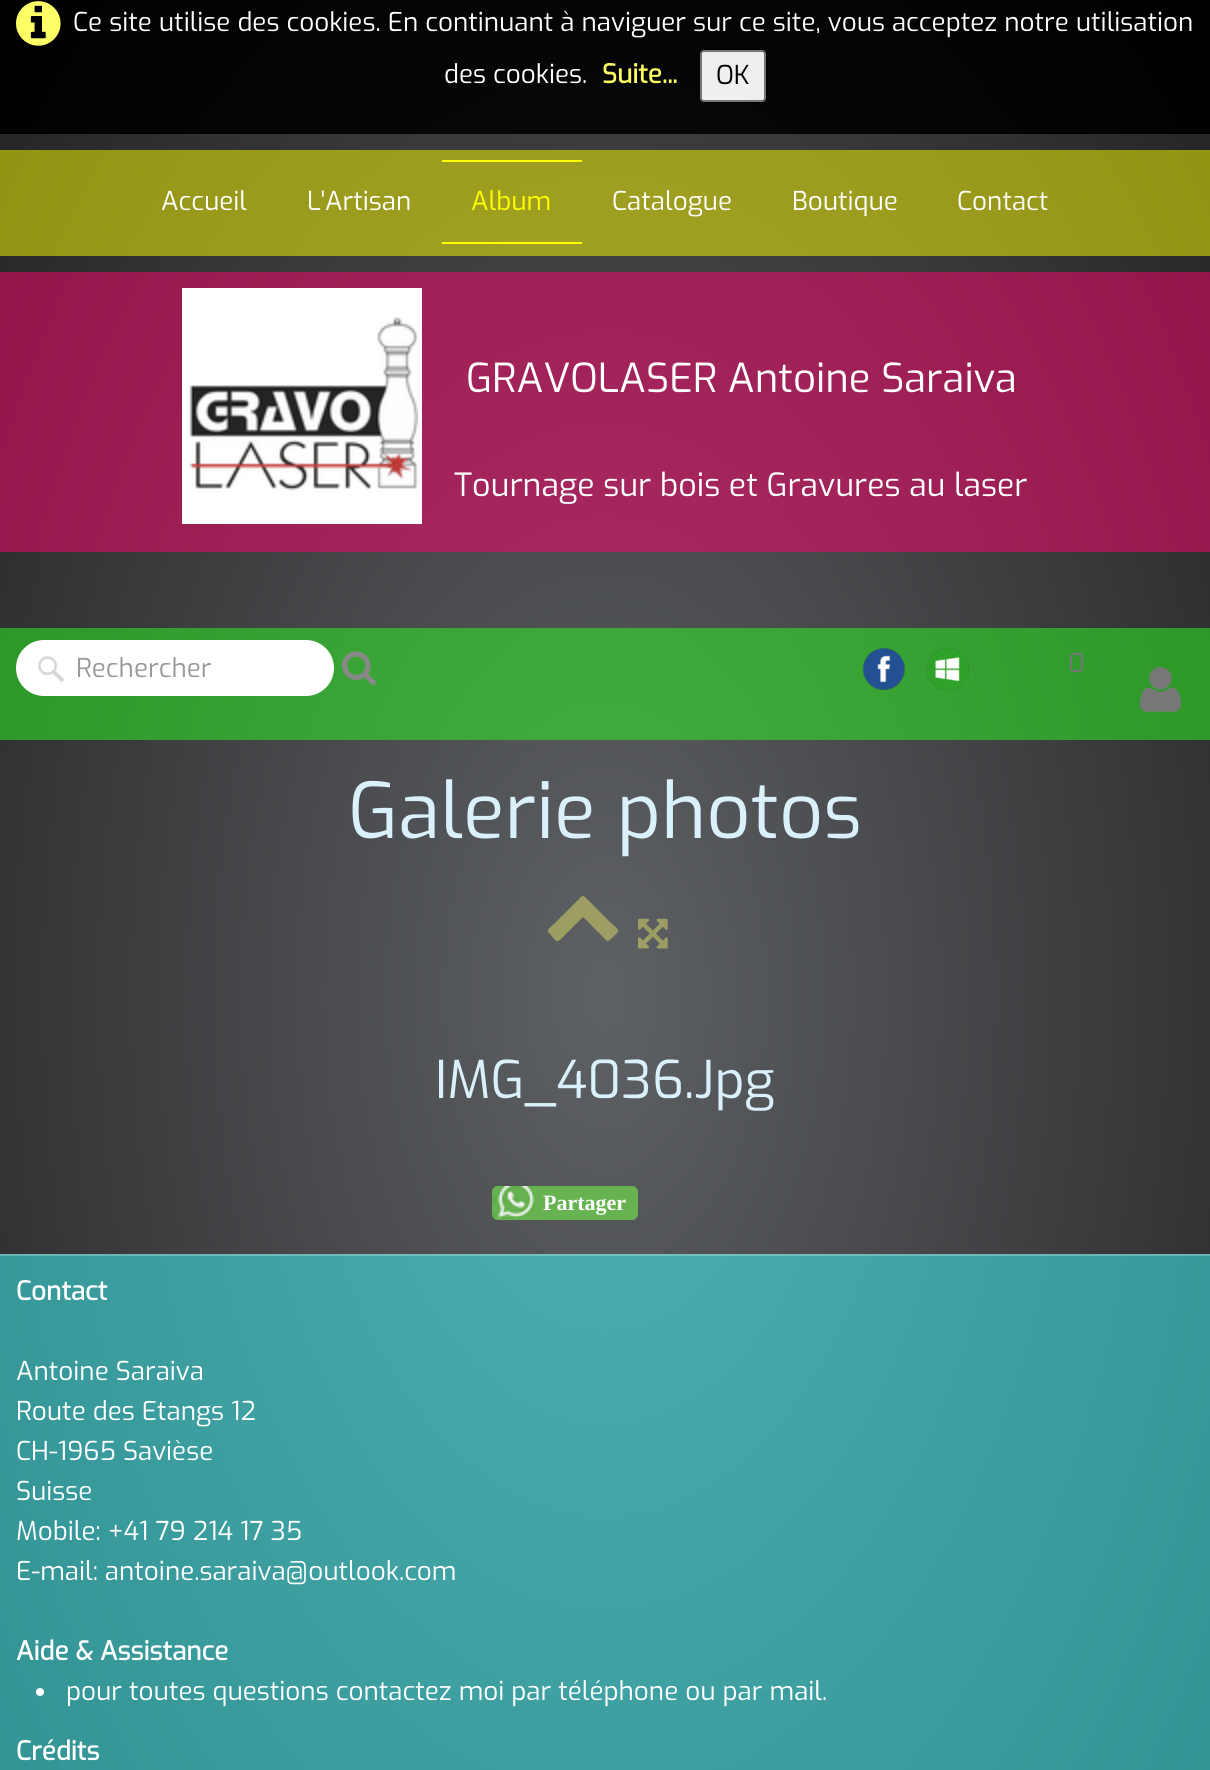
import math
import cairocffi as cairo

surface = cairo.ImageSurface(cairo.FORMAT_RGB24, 1210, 1770)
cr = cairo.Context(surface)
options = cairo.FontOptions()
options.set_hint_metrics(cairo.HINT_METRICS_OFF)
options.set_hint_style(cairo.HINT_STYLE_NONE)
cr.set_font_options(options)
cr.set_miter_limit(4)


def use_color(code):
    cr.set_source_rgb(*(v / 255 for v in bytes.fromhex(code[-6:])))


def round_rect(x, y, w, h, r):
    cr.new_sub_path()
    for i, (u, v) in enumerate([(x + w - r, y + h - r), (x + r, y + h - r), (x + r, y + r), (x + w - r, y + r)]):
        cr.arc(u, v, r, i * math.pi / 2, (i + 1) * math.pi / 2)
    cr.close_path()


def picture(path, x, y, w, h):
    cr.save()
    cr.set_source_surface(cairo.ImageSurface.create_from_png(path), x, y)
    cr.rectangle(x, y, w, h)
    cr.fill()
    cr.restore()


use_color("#ffffff")
cr.paint()
gradient = cairo.RadialGradient(0, 0, 0, 0, 0, 1)
gradient.set_matrix(cairo.Matrix(1 / 856, 0, 0, 1 / 1454, -1 * 605 / 856, -1 * 994 / 1454))
gradient.add_color_stop_rgba(0, 0.055, 0.059, 0.063, 1)
gradient.add_color_stop_rgba(1, 0, 0, 0, 1)
cr.set_source(gradient)
cr.rectangle(0, 0, 1210, 134)
cr.fill()
gradient = cairo.RadialGradient(0, 0, 0, 0, 0, 1)
gradient.set_matrix(cairo.Matrix(1 / 856, 0, 0, 1 / 1454, -1 * 605 / 856, -1 * 994 / 1454))
gradient.add_color_stop_rgba(0, 0.369, 0.38, 0.396, 1)
gradient.add_color_stop_rgba(1, 0.129, 0.129, 0.129, 1)
cr.set_source(gradient)
cr.rectangle(0, 134, 1210, 1120)
cr.fill()
gradient = cairo.RadialGradient(0, 0, 0, 0, 0, 1)
gradient.set_matrix(cairo.Matrix(1 / 856, 0, 0, 1 / 1454, -1 * 605 / 856, -1 * 994 / 1454))
gradient.add_color_stop_rgba(0, 0.306, 0.69, 0.698, 1)
gradient.add_color_stop_rgba(1, 0.184, 0.565, 0.565, 1)
cr.set_source(gradient)
cr.rectangle(0, 1256, 1210, 514)
cr.fill()
gradient = cairo.RadialGradient(0, 0, 0, 0, 0, 1)
gradient.set_matrix(cairo.Matrix(1 / 856, 0, 0, 1 / 1454, -1 * 605 / 856, -1 * 994 / 1454))
gradient.add_color_stop_rgba(0, 0.478, 0.769, 0.773, 1)
gradient.add_color_stop_rgba(1, 0.388, 0.675, 0.675, 1)
cr.set_source(gradient)
cr.rectangle(0, 1254, 1210, 2)
cr.fill()
gradient = cairo.RadialGradient(0, 0, 0, 0, 0, 1)
gradient.set_matrix(cairo.Matrix(1 / 856, 0, 0, 1 / 1454, -1 * 605 / 856, -1 * 994 / 1454))
gradient.add_color_stop_rgba(0, 0.267, 0.69, 0.259, 1)
gradient.add_color_stop_rgba(1, 0.149, 0.565, 0.125, 1)
cr.set_source(gradient)
cr.rectangle(0, 628, 1210, 112)
cr.fill()
gradient = cairo.RadialGradient(0, 0, 0, 0, 0, 1)
gradient.set_matrix(cairo.Matrix(1 / 856, 0, 0, 1 / 1454, -1 * 605 / 856, -1 * 994 / 1454))
gradient.add_color_stop_rgba(0, 0.686, 0.192, 0.408, 1)
gradient.add_color_stop_rgba(1, 0.565, 0.067, 0.275, 1)
cr.set_source(gradient)
cr.rectangle(0, 272, 1210, 280)
cr.fill()
gradient = cairo.RadialGradient(0, 0, 0, 0, 0, 1)
gradient.set_matrix(cairo.Matrix(1 / 856, 0, 0, 1 / 1454, -1 * 605 / 856, -1 * 994 / 1454))
gradient.add_color_stop_rgba(0, 0.686, 0.69, 0.2, 1)
gradient.add_color_stop_rgba(1, 0.565, 0.565, 0.067, 1)
cr.set_source(gradient)
cr.rectangle(0, 150, 1210, 106)
cr.fill()
picture("img1.png", 16, 1, 45, 45)
cr.select_font_face("Exo")
cr.set_font_size(26)
use_color("#ffffff")
cr.move_to(73, 31)
cr.show_text("Ce site utilise des cookies. En continuant à naviguer sur ce site, vous acceptez notre utilisation")
cr.move_to(444, 83)
cr.show_text("des cookies.")
cr.select_font_face("Exo", cairo.FONT_SLANT_NORMAL, cairo.FONT_WEIGHT_BOLD)
use_color("#ffff66")
cr.move_to(602, 83)
cr.show_text("Suite...")
use_color("#efefef")
round_rect(701, 51, 64, 50, 3)
cr.fill_preserve()
use_color("#767676")
cr.stroke()
cr.select_font_face("Exo")
use_color("#000000")
cr.move_to(716, 84)
cr.show_text("OK")
use_color("#ffffff")
cr.move_to(161, 210)
cr.show_text("Accueil")
cr.move_to(307, 210)
cr.show_text("L'Artisan")
use_color("#ffff00")
cr.rectangle(442, 160, 140, 2)
cr.fill()
cr.rectangle(442, 242, 140, 2)
cr.fill()
cr.move_to(471, 210)
cr.show_text("Album")
use_color("#ffffff")
cr.move_to(612, 210)
cr.show_text("Catalogue")
cr.move_to(792, 210)
cr.show_text("Boutique")
cr.move_to(957, 210)
cr.show_text("Contact")
picture("img2.png", 182, 288, 240, 236)
cr.set_font_size(40)
cr.move_to(466, 392)
cr.show_text("GRAVOLASER Antoine Saraiva")
cr.set_font_size(32)
cr.move_to(454, 496)
cr.show_text("Tournage sur bois et Gravures au laser")
round_rect(16, 640, 318, 56, 28)
cr.fill()
picture("img3.png", 38, 656, 26, 26)
cr.set_font_size(26)
use_color("#999999")
cr.move_to(76, 677)
cr.show_text("Rechercher")
picture("img4.png", 342, 651, 34, 35)
picture("img5.png", 862, 647, 44, 44)
picture("img6.png", 926, 647, 44, 43)
use_color("#777777")
cr.move_to(1068, 672)
cr.show_text("0")
picture("img7.png", 1140, 667, 41, 45)
cr.set_font_size(77)
use_color("#daf1fb")
cr.move_to(348, 838)
cr.show_text("Galerie photos")
cr.set_source_rgba(1, 1, 0.4, 0.4)
cr.new_path()
cr.move_to(617, 933)
cr.line_to(611, 939)
cr.curve_to(607, 943, 606, 940, 602, 936)
cr.line_to(583, 917)
cr.line_to(564, 936)
cr.curve_to(556, 944, 557, 942, 550, 934)
cr.curve_to(545, 930, 550, 928, 554, 924)
cr.line_to(576, 902)
cr.curve_to(584, 894, 582, 894, 590, 902)
cr.line_to(612, 924)
cr.curve_to(613, 925, 621, 930, 617, 933)
cr.close_path()
cr.fill()
picture("img8.png", 638, 918, 30, 31)
cr.set_font_size(52)
use_color("#daf1fb")
cr.move_to(435, 1098)
cr.show_text("IMG_4036.Jpg")
use_color("#67b351")
round_rect(492, 1186, 146, 34, 6)
cr.fill()
picture("img9.png", 492, 1186, 44, 34)
cr.select_font_face("Liberation Serif", cairo.FONT_SLANT_NORMAL, cairo.FONT_WEIGHT_BOLD)
cr.set_font_size(22)
use_color("#ffffff")
cr.move_to(543, 1210)
cr.show_text("Partager")
cr.select_font_face("Exo", cairo.FONT_SLANT_NORMAL, cairo.FONT_WEIGHT_BOLD)
cr.set_font_size(26)
cr.move_to(16, 1300)
cr.show_text("Contact")
cr.select_font_face("Exo")
cr.move_to(16, 1380)
cr.show_text("Antoine Saraiva")
cr.move_to(16, 1420)
cr.show_text("Route des Etangs 12")
cr.move_to(16, 1460)
cr.show_text("CH-1965 Savièse")
cr.move_to(16, 1500)
cr.show_text("Suisse")
cr.move_to(16, 1540)
cr.show_text("Mobile: +41 79 214 17 35")
cr.move_to(16, 1580)
cr.show_text("E-mail: antoine.saraiva@outlook.com")
cr.select_font_face("Exo", cairo.FONT_SLANT_NORMAL, cairo.FONT_WEIGHT_BOLD)
cr.move_to(16, 1660)
cr.show_text("Aide & Assistance")
cr.new_path()
cr.arc(40, 1692, 4, 0, 2 * math.pi)
cr.fill()
cr.select_font_face("Exo")
cr.move_to(66, 1700)
cr.show_text("pour toutes questions contactez moi par téléphone ou par mail.")
cr.select_font_face("Exo", cairo.FONT_SLANT_NORMAL, cairo.FONT_WEIGHT_BOLD)
cr.move_to(16, 1760)
cr.show_text("Crédits")
surface.write_to_png("result.png")
